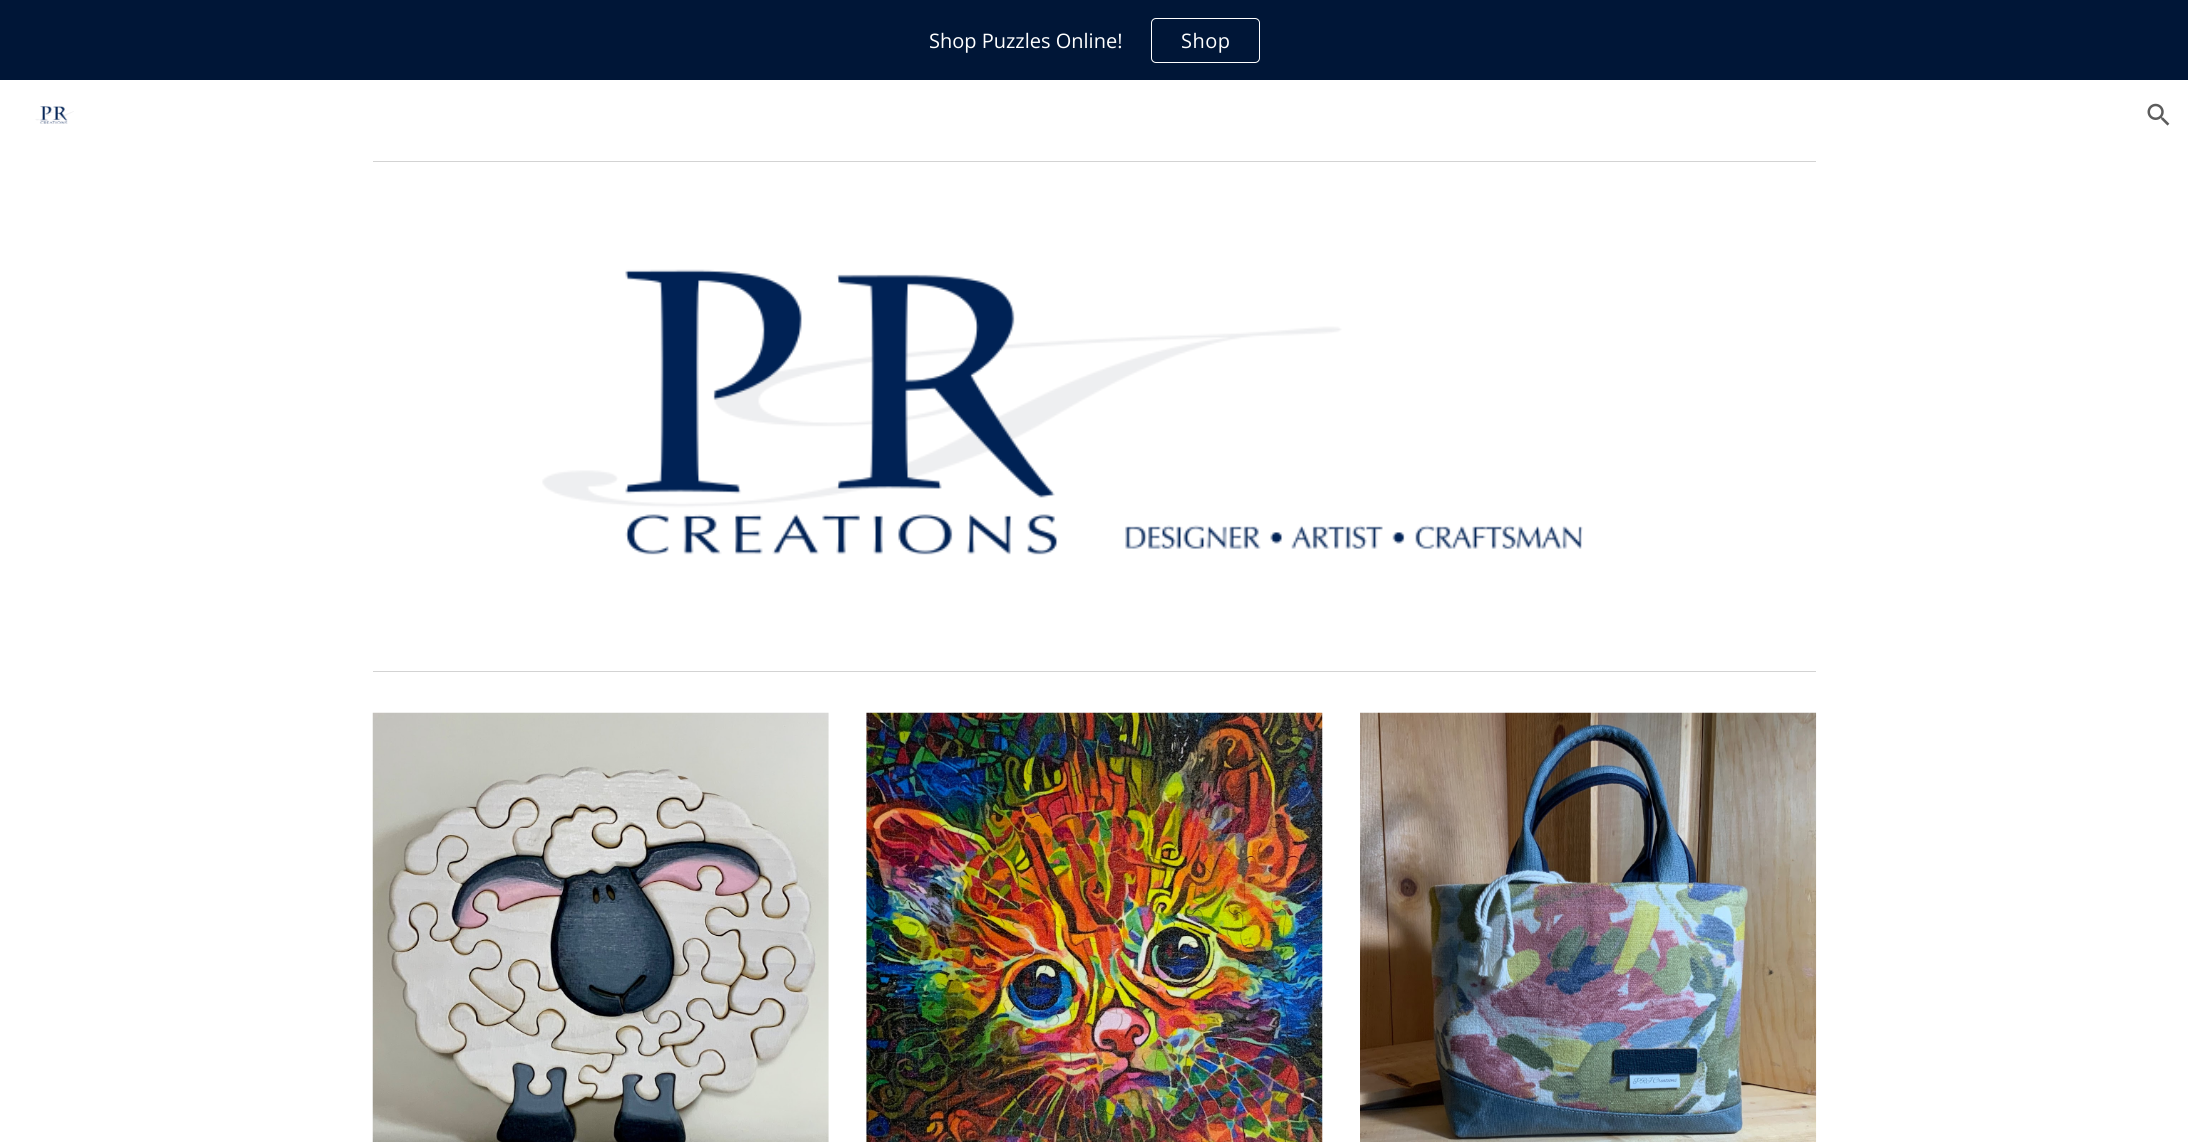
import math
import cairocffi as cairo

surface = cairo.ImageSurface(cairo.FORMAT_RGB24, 2188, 1142)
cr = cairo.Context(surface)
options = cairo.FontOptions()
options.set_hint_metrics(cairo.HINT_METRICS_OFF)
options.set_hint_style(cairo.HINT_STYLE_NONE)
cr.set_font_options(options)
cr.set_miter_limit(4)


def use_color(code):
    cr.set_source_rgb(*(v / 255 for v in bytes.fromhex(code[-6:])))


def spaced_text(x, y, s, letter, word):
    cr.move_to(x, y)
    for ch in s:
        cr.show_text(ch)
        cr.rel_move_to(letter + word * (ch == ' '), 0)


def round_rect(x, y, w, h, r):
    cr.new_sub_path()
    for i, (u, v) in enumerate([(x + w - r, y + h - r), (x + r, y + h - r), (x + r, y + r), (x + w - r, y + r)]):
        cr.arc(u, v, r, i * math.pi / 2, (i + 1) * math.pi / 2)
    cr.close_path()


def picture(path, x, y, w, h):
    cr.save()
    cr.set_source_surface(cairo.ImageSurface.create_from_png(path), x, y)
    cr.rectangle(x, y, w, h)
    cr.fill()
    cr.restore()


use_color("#ffffff")
cr.paint()
use_color("#001637")
cr.rectangle(0, 0, 2188, 80)
cr.fill()
cr.select_font_face("Open Sans")
cr.set_font_size(20)
use_color("#ffffff")
cr.move_to(929, 48)
cr.show_text("Shop Puzzles Online!")
round_rect(1151.5, 18.5, 108, 44, 4.5)
cr.set_line_width(1)
cr.stroke()
spaced_text(1181, 48, "Shop", 0.5, 0)
picture("img1.png", 35, 106, 39, 18)
picture("img2.png", 2147, 103, 23, 23)
use_color("#d3d3d3")
cr.rectangle(373, 161, 1443, 1)
cr.fill()
picture("img3.png", 542, 269, 1041, 286)
cr.rectangle(373, 671, 1443, 1)
cr.fill()
picture("img4.png", 372, 712, 457, 430)
picture("img5.png", 866, 712, 457, 430)
picture("img6.png", 1360, 712, 457, 430)
surface.write_to_png("result.png")
